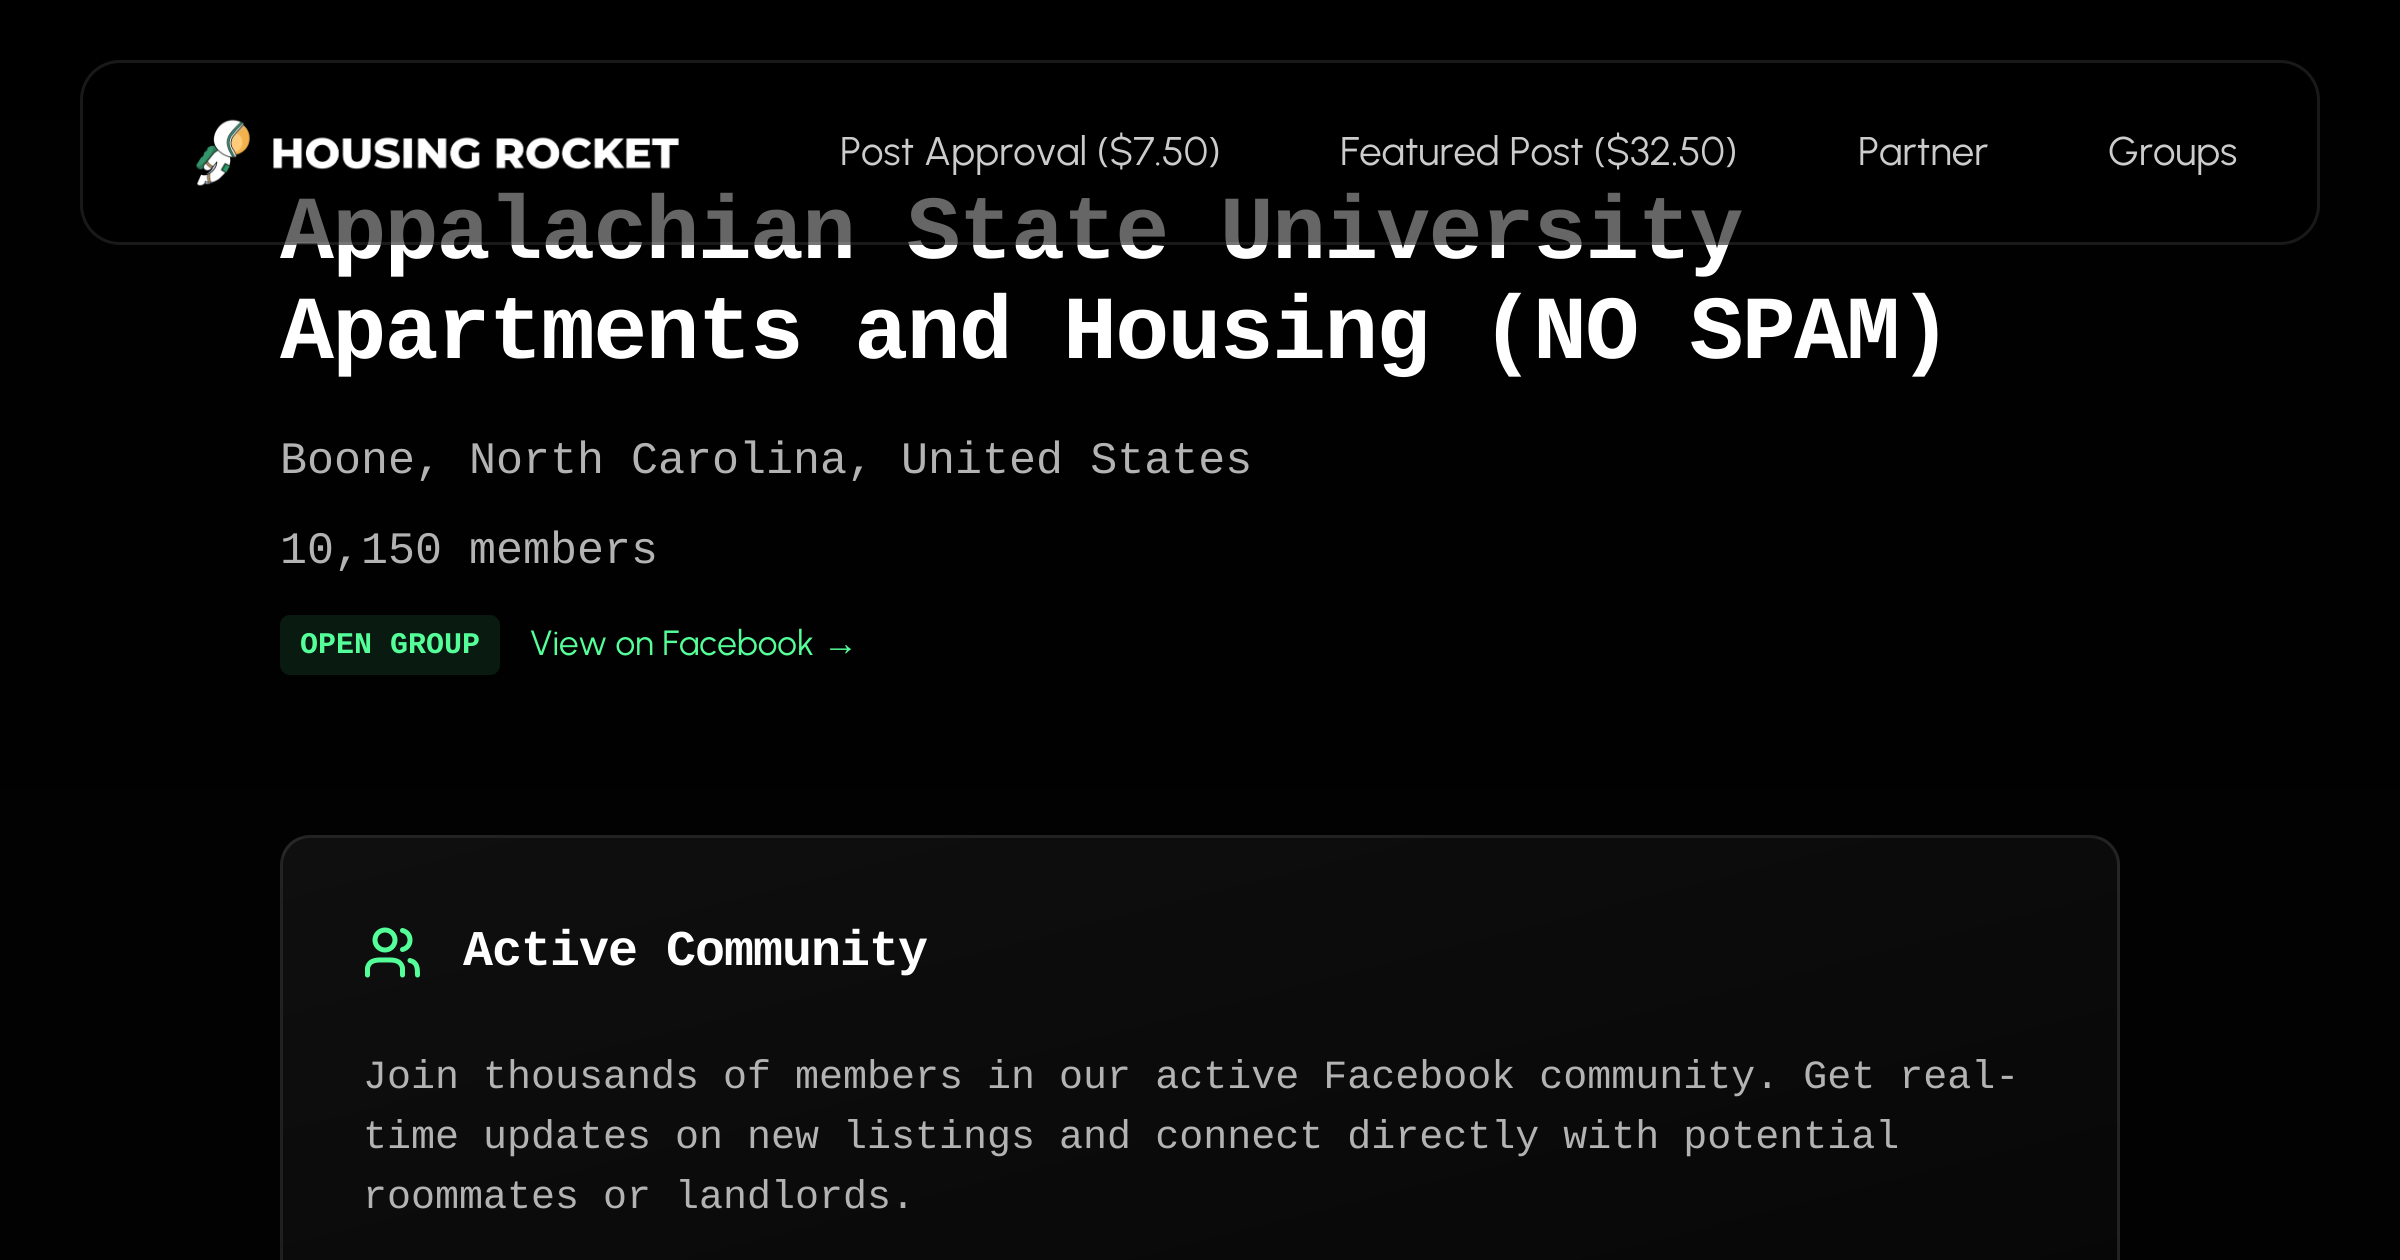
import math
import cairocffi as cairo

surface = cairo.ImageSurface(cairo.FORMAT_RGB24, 2400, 1260)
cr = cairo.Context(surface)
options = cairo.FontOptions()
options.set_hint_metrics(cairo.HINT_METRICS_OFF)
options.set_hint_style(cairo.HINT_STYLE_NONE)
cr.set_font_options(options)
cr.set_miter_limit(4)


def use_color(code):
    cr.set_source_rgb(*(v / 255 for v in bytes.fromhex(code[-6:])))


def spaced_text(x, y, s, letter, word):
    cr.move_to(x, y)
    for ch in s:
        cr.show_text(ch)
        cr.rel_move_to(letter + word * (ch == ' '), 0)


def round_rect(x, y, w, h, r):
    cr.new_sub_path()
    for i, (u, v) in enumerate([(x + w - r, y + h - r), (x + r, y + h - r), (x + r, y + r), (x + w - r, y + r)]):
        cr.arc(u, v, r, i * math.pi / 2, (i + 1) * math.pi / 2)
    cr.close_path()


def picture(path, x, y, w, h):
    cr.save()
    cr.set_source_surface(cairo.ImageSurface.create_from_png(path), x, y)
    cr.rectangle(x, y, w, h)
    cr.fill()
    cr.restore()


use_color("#ffffff")
cr.paint()
gradient = cairo.LinearGradient(1200, -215, 1200, 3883)
gradient.add_color_stop_rgba(0, 0, 0, 0, 1)
gradient.add_color_stop_rgba(0.5, 0.012, 0.012, 0.012, 1)
gradient.add_color_stop_rgba(1, 0.02, 0.02, 0.02, 1)
cr.set_source(gradient)
cr.rectangle(0, 0, 2400, 1260)
cr.fill()
cr.select_font_face("Liberation Mono", cairo.FONT_SLANT_NORMAL, cairo.FONT_WEIGHT_BOLD)
cr.set_font_size(90)
use_color("#ffffff")
spaced_text(280, 258, "Appalachian State University", -1.8, 0)
cr.set_source_rgba(0, 0, 0, 0.6)
round_rect(80, 60, 2240, 185, 40)
cr.fill()
round_rect(81.5, 61.5, 2237, 182, 38.5)
cr.set_source_rgba(1, 1, 1, 0.1)
cr.set_line_width(3)
cr.stroke()
picture("img1.png", 196, 119, 483, 67)
cr.select_font_face("Urbanist")
cr.set_font_size(40)
use_color("#cccccc")
cr.move_to(840, 165)
cr.show_text("Post Approval ($7.50)")
cr.move_to(1340, 165)
cr.show_text("Featured Post ($32.50)")
cr.move_to(1858, 165)
cr.show_text("Partner")
cr.move_to(2108, 165)
cr.show_text("Groups")
cr.select_font_face("Liberation Mono", cairo.FONT_SLANT_NORMAL, cairo.FONT_WEIGHT_BOLD)
cr.set_font_size(90)
use_color("#ffffff")
spaced_text(280, 358, "Apartments and Housing (NO SPAM)", -1.8, 0)
cr.select_font_face("Liberation Mono")
cr.set_font_size(45)
use_color("#b3b3b3")
cr.move_to(280, 473)
cr.show_text("Boone, North Carolina, United States")
cr.move_to(280, 563)
cr.show_text("10,150 members")
use_color("#091a10")
round_rect(280, 615, 220, 60, 10)
cr.fill()
cr.select_font_face("Liberation Mono", cairo.FONT_SLANT_NORMAL, cairo.FONT_WEIGHT_BOLD)
cr.set_font_size(30)
use_color("#54ff99")
cr.move_to(300, 653)
cr.show_text("OPEN GROUP")
cr.select_font_face("Urbanist")
cr.set_font_size(35)
cr.move_to(530, 655)
cr.show_text("View on Facebook")
cr.select_font_face("Liberation Sans")
cr.move_to(823, 655)
cr.show_text("→")
cr.save()
round_rect(280, 835, 1840, 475, 30)
cr.clip()
gradient = cairo.LinearGradient(1087, 161, 1313, 1044)
gradient.add_color_stop_rgba(0, 0.059, 0.059, 0.059, 1)
gradient.add_color_stop_rgba(1, 0.027, 0.027, 0.027, 1)
cr.set_source(gradient)
cr.rectangle(297, 835, 1806, 3)
cr.fill()
gradient = cairo.LinearGradient(-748, 631, -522, 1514)
gradient.add_color_stop_rgba(0, 0.059, 0.059, 0.059, 1)
gradient.add_color_stop_rgba(1, 0.027, 0.027, 0.027, 1)
cr.set_source(gradient)
cr.rectangle(280, 852, 3, 408)
cr.fill()
gradient = cairo.LinearGradient(1087, 631, 1313, 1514)
gradient.add_color_stop_rgba(0, 0.059, 0.059, 0.059, 1)
gradient.add_color_stop_rgba(1, 0.027, 0.027, 0.027, 1)
cr.set_source(gradient)
cr.rectangle(283, 838, 1835, 422)
cr.fill()
gradient = cairo.LinearGradient(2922, 631, 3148, 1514)
gradient.add_color_stop_rgba(0, 0.059, 0.059, 0.059, 1)
gradient.add_color_stop_rgba(1, 0.027, 0.027, 0.027, 1)
cr.set_source(gradient)
cr.rectangle(2118, 854, 2, 406)
cr.fill()
cr.restore()
round_rect(281.5, 836.5, 1837, 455, 28.5)
cr.set_source_rgba(1, 1, 1, 0.1)
cr.stroke()
cr.new_path()
cr.move_to(402.5, 975)
cr.line_to(402.5, 968)
cr.curve_to(400.5, 959, 392, 960, 385, 960)
cr.curve_to(378, 960, 369.5, 959, 367.5, 968)
cr.line_to(367.5, 975)
use_color("#54ff99")
cr.set_line_width(5)
cr.set_line_cap(cairo.LINE_CAP_ROUND)
cr.set_line_join(cairo.LINE_JOIN_ROUND)
cr.stroke()
cr.arc(385, 940, 10, 0, 2 * math.pi)
cr.set_line_cap(cairo.LINE_CAP_BUTT)
cr.set_line_join(cairo.LINE_JOIN_MITER)
cr.stroke()
cr.new_path()
cr.move_to(417.5, 975)
cr.curve_to(417.5, 968.5, 417.5, 962.5, 410, 960.5)
cr.move_to(402.5, 930.5)
cr.curve_to(412.5, 933, 412.5, 947, 402.5, 949.5)
cr.set_line_cap(cairo.LINE_CAP_ROUND)
cr.set_line_join(cairo.LINE_JOIN_ROUND)
cr.stroke()
cr.select_font_face("Liberation Mono", cairo.FONT_SLANT_NORMAL, cairo.FONT_WEIGHT_BOLD)
cr.set_font_size(50)
use_color("#ffffff")
spaced_text(463, 965, "Active Community", -1, 0)
cr.select_font_face("Liberation Mono")
cr.set_font_size(40)
use_color("#b3b3b3")
cr.move_to(363, 1088)
cr.show_text("Join thousands of members in our active Facebook community. Get real-")
cr.move_to(363, 1148)
cr.show_text("time updates on new listings and connect directly with potential")
cr.move_to(363, 1208)
cr.show_text("roommates or landlords.")
surface.write_to_png("result.png")
